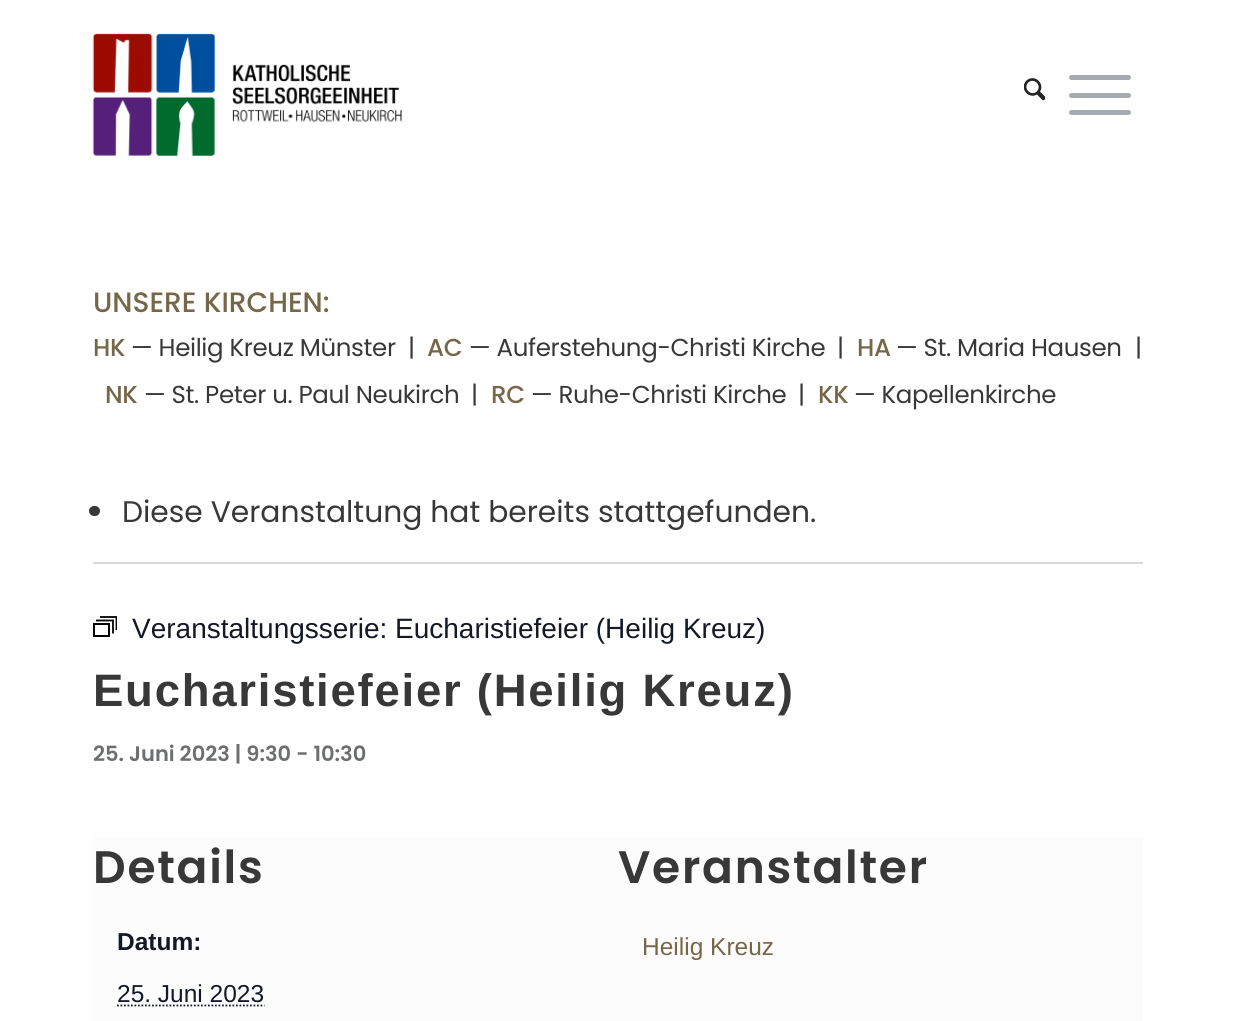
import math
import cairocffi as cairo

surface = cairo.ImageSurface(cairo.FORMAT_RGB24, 1234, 1021)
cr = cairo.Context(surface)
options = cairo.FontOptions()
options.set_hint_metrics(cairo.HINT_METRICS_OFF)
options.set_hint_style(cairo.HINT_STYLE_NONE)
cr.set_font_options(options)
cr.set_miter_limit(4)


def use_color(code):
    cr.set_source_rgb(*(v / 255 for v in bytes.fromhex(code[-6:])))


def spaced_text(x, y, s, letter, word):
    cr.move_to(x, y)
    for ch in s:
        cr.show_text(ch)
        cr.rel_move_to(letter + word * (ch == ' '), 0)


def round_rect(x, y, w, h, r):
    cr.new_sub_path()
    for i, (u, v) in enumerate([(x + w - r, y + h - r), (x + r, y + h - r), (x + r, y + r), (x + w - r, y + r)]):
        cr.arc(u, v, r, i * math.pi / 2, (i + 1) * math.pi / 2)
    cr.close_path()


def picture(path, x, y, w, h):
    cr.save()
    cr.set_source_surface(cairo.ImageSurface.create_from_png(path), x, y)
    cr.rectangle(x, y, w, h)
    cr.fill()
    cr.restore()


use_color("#ffffff")
cr.paint()
picture("img1.png", 92, 33, 310, 123)
picture("img2.png", 1024, 78, 21, 23)
use_color("#a7abb1")
round_rect(1069, 93, 62, 5, 2.5)
cr.fill()
round_rect(1069, 75, 62, 5, 2.5)
cr.fill()
round_rect(1069, 110, 62, 5, 2.5)
cr.fill()
cr.select_font_face("Poppins Medium")
cr.set_font_size(28)
use_color("#756748")
cr.move_to(93, 312)
cr.show_text("UNSERE KIRCHEN:")
cr.set_font_size(24.5)
spaced_text(93, 356, "HK", -0.35, 0)
cr.select_font_face("Poppins")
use_color("#383838")
spaced_text(131, 356, "— Heilig Kreuz Münster  |", -0.35, 0)
cr.select_font_face("Poppins Medium")
use_color("#756748")
spaced_text(427, 356, "AC", -0.35, 0)
cr.select_font_face("Poppins")
use_color("#383838")
spaced_text(469, 356, "— Auferstehung-Christi Kirche", -0.35, 0)
spaced_text(837, 356, "|", -0.35, 0)
cr.select_font_face("Poppins Medium")
use_color("#756748")
spaced_text(857, 356, "HA", -0.35, 0)
cr.select_font_face("Poppins")
use_color("#383838")
spaced_text(896, 356, "— St. Maria Hausen", -0.35, 0)
spaced_text(1135, 356, "|", -0.35, 0)
cr.select_font_face("Poppins Medium")
use_color("#756748")
spaced_text(105, 403, "NK", -0.35, 0)
cr.select_font_face("Poppins")
use_color("#383838")
spaced_text(144, 403, "— St. Peter u. Paul Neukirch", -0.35, 0)
spaced_text(471, 403, "|", -0.35, 0)
cr.select_font_face("Poppins Medium")
use_color("#756748")
spaced_text(491, 403, "RC", -0.35, 0)
cr.select_font_face("Poppins")
use_color("#383838")
spaced_text(531, 403, "— Ruhe-Christi Kirche", -0.35, 0)
spaced_text(798, 403, "|", -0.35, 0)
cr.select_font_face("Poppins Medium")
use_color("#756748")
spaced_text(818, 403, "KK", -0.35, 0)
cr.select_font_face("Poppins")
use_color("#383838")
spaced_text(854, 403, "— Kapellenkirche", -0.35, 0)
use_color("#d9d9d9")
cr.rectangle(93, 562, 1050, 2)
cr.fill()
use_color("#383838")
round_rect(89, 506, 11, 10, 5)
cr.fill()
cr.set_font_size(29.75)
cr.move_to(122, 522)
cr.show_text("Diese Veranstaltung hat bereits stattgefunden.")
cr.rectangle(94, 624, 15, 12)
use_color("#000000")
cr.stroke()
cr.new_path()
cr.move_to(96, 620.5)
cr.line_to(113, 620.5)
cr.line_to(113, 633.5)
cr.set_line_width(1.8)
cr.stroke()
cr.save()
cr.rectangle(93, 616, 24, 21)
cr.clip()
cr.new_path()
cr.move_to(100, 617)
cr.line_to(116.5, 617)
cr.line_to(116.5, 630)
cr.stroke()
cr.restore()
cr.select_font_face("Liberation Sans")
cr.set_font_size(28)
use_color("#141827")
cr.move_to(132, 638)
cr.show_text("Veranstaltungsserie: Eucharistiefeier (Heilig Kreuz)")
cr.select_font_face("Liberation Sans", cairo.FONT_SLANT_NORMAL, cairo.FONT_WEIGHT_BOLD)
cr.set_font_size(45.5)
use_color("#383838")
spaced_text(93, 706, "Eucharistiefeier (Heilig Kreuz)", 1.75, 0)
cr.select_font_face("Poppins SemiBold")
cr.set_font_size(21)
use_color("#6d6e6f")
cr.move_to(93, 761)
cr.show_text("25. Juni 2023 | 9:30 - 10:30")
use_color("#fcfcfc")
cr.rectangle(93, 837, 1050, 184)
cr.fill()
cr.set_font_size(45.5)
use_color("#383838")
spaced_text(93, 883, "Details", 1.75, 0)
cr.select_font_face("Liberation Sans", cairo.FONT_SLANT_NORMAL, cairo.FONT_WEIGHT_BOLD)
cr.set_font_size(24.5)
use_color("#141827")
cr.move_to(117, 950)
cr.show_text("Datum:")
cr.select_font_face("Liberation Sans")
cr.move_to(117, 1002)
cr.show_text("25. Juni 2023")
cr.new_path()
cr.move_to(117, 1005.5)
cr.line_to(264.5, 1005.5)
cr.set_dash([1.75, 1.75])
cr.stroke()
cr.select_font_face("Poppins SemiBold")
cr.set_font_size(45.5)
use_color("#383838")
spaced_text(618, 883, "Veranstalter", 1.75, 0)
cr.select_font_face("Liberation Sans")
cr.set_font_size(24.5)
use_color("#756748")
cr.move_to(642, 955)
cr.show_text("Heilig Kreuz")
surface.write_to_png("result.png")
